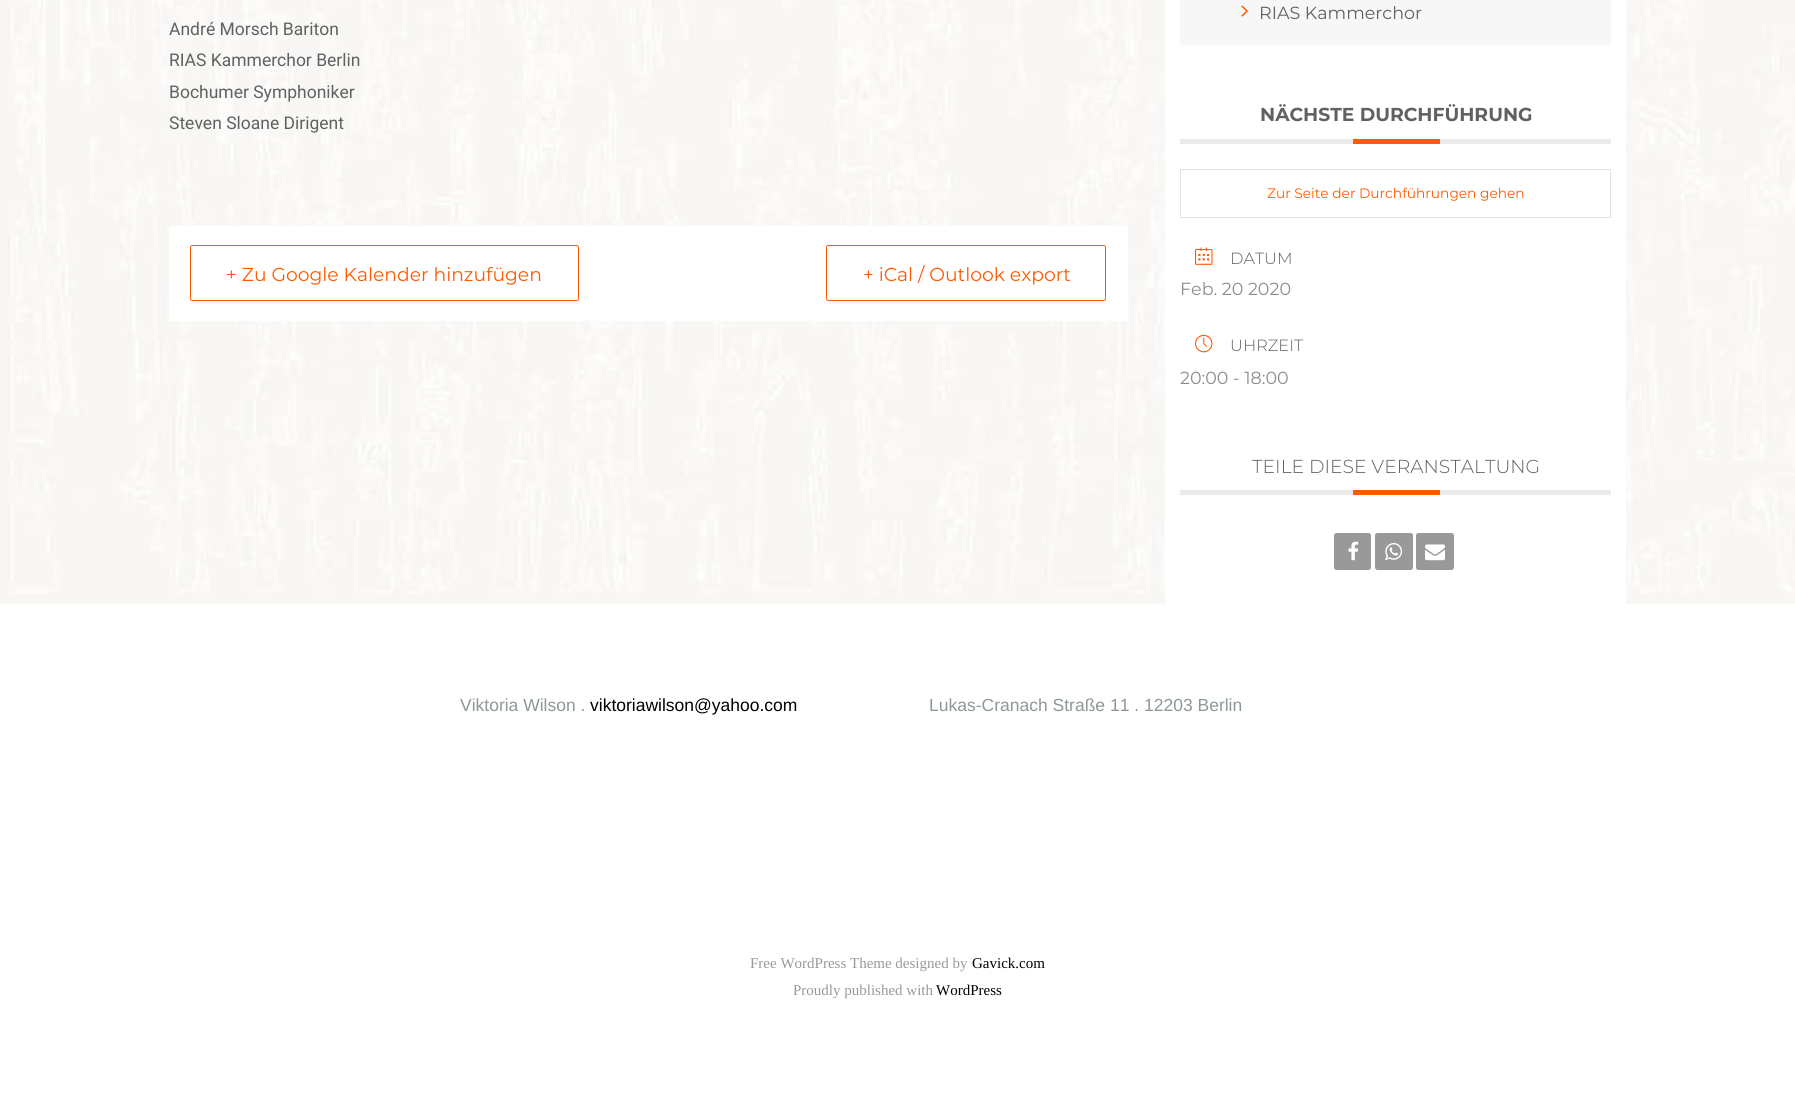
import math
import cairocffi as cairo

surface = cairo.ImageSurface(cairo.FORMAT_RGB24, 1795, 1093)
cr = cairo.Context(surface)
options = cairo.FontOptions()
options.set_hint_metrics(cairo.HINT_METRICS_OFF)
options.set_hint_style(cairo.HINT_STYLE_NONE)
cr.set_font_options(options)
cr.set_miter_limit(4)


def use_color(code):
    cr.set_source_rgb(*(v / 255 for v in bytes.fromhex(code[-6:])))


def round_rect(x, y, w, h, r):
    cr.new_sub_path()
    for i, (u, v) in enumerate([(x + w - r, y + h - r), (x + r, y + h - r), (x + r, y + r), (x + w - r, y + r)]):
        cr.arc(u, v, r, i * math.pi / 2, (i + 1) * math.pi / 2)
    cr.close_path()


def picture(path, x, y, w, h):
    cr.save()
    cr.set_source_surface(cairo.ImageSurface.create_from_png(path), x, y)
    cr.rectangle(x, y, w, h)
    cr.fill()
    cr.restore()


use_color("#ffffff")
cr.paint()
use_color("#f9f7f4")
cr.rectangle(0, 0, 1795, 604)
cr.fill()
picture("img1.png", 8, 0, 1787, 595)
cr.select_font_face("Roboto")
cr.set_font_size(17.5)
use_color("#616161")
cr.move_to(169, 35)
cr.show_text("André Morsch Bariton")
cr.move_to(169, 66)
cr.show_text("RIAS Kammerchor Berlin")
cr.move_to(169, 98)
cr.show_text("Bochumer Symphoniker")
cr.move_to(169, 129)
cr.show_text("Steven Sloane Dirigent")
use_color("#ffffff")
cr.rectangle(169, 226, 959, 95)
cr.fill()
use_color("#f7f7f7")
cr.new_path()
cr.move_to(190, 299)
cr.line_to(190, 302)
cr.curve_to(190, 303, 191, 304, 192, 304)
cr.line_to(576, 304)
cr.curve_to(578, 304, 579, 303, 579, 302)
cr.line_to(579, 249)
cr.line_to(579, 299)
cr.curve_to(579, 300, 578, 301, 576, 301)
cr.line_to(192, 301)
cr.curve_to(191, 301, 190, 300, 190, 299)
cr.close_path()
cr.fill()
round_rect(190.5, 245.5, 388, 55, 2)
use_color("#ff5a00")
cr.set_line_width(1)
cr.stroke()
cr.select_font_face("Montserrat")
cr.set_font_size(18.75)
cr.move_to(226, 281)
cr.show_text("+ Zu Google Kalender hinzufügen")
use_color("#f7f7f7")
cr.new_path()
cr.move_to(826, 249)
cr.line_to(826, 302)
cr.curve_to(826, 303, 827, 304, 828, 304)
cr.line_to(1104, 304)
cr.curve_to(1105, 304, 1106, 303, 1106, 302)
cr.line_to(1106, 300)
cr.curve_to(1106, 301, 1105, 301, 1104, 301)
cr.line_to(829, 301)
cr.curve_to(827, 301, 826, 300, 826, 299)
cr.close_path()
cr.fill()
round_rect(826.5, 245.5, 279, 55, 2)
use_color("#ff5a00")
cr.stroke()
cr.move_to(863, 281)
cr.show_text("+ iCal / Outlook export")
use_color("#ffffff")
cr.rectangle(1165, 0, 461, 604)
cr.fill()
use_color("#f7f7f7")
cr.rectangle(1180, 0, 431, 45)
cr.fill()
picture("img2.png", 1241, 5, 7, 12)
cr.set_font_size(17.5)
use_color("#616161")
cr.move_to(1259, 19)
cr.show_text("RIAS Kammerchor")
use_color("#ebebeb")
cr.rectangle(1180, 139, 431, 5)
cr.fill()
cr.select_font_face("Montserrat", cairo.FONT_SLANT_NORMAL, cairo.FONT_WEIGHT_BOLD)
cr.set_font_size(18.75)
use_color("#616161")
cr.move_to(1260, 121)
cr.show_text("NÄCHSTE DURCHFÜHRUNG")
use_color("#ff5a00")
cr.rectangle(1353, 139, 87, 5)
cr.fill()
cr.rectangle(1180.5, 169.5, 430, 48)
use_color("#e3e3e3")
cr.stroke()
cr.select_font_face("Montserrat")
cr.set_font_size(13.75)
use_color("#ff5a00")
cr.move_to(1267, 198)
cr.show_text("Zur Seite der Durchführungen gehen")
picture("img3.png", 1195, 247, 18, 18)
cr.select_font_face("Montserrat Light")
cr.set_font_size(16.25)
use_color("#616161")
cr.move_to(1230, 264)
cr.show_text("DATUM")
cr.select_font_face("Montserrat")
cr.set_font_size(17.5)
use_color("#8d8d8d")
cr.move_to(1180, 295)
cr.show_text("Feb. 20 2020")
picture("img4.png", 1195, 334, 18, 19)
cr.select_font_face("Montserrat Light")
cr.set_font_size(16.25)
use_color("#616161")
cr.move_to(1230, 351)
cr.show_text("UHRZEIT")
cr.select_font_face("Montserrat")
cr.set_font_size(17.5)
use_color("#8d8d8d")
cr.move_to(1180, 384)
cr.show_text("20:00 - 18:00")
use_color("#ebebeb")
cr.rectangle(1180, 490, 431, 5)
cr.fill()
cr.select_font_face("Montserrat Light")
cr.set_font_size(18.75)
use_color("#616161")
cr.move_to(1252, 473)
cr.show_text("TEILE DIESE VERANSTALTUNG")
use_color("#ff5a00")
cr.rectangle(1353, 490, 87, 5)
cr.fill()
use_color("#999999")
round_rect(1334, 533, 37, 37, 2.5)
cr.fill()
picture("img5.png", 1348, 541, 11, 20)
round_rect(1375, 533, 38, 37, 2.5)
cr.fill()
picture("img6.png", 1385, 543, 18, 18)
round_rect(1416, 533, 38, 37, 2.5)
cr.fill()
picture("img7.png", 1425, 544, 20, 17)
cr.select_font_face("Liberation Sans")
cr.set_font_size(17.5)
use_color("#8e9798")
cr.move_to(460, 711)
cr.show_text("Viktoria Wilson .")
use_color("#000000")
cr.move_to(590, 711)
cr.show_text("viktoriawilson@yahoo.com")
use_color("#8e9798")
cr.move_to(929, 711)
cr.show_text("Lukas-Cranach Straße 11 . 12203 Berlin")
cr.select_font_face("Liberation Serif")
cr.set_font_size(15)
use_color("#999999")
cr.move_to(750, 968)
cr.show_text("Free WordPress Theme designed by")
use_color("#000000")
cr.move_to(972, 968)
cr.show_text("Gavick.com")
use_color("#999999")
cr.move_to(793, 995)
cr.show_text("Proudly published with")
use_color("#000000")
cr.move_to(936, 995)
cr.show_text("WordPress")
surface.write_to_png("result.png")
